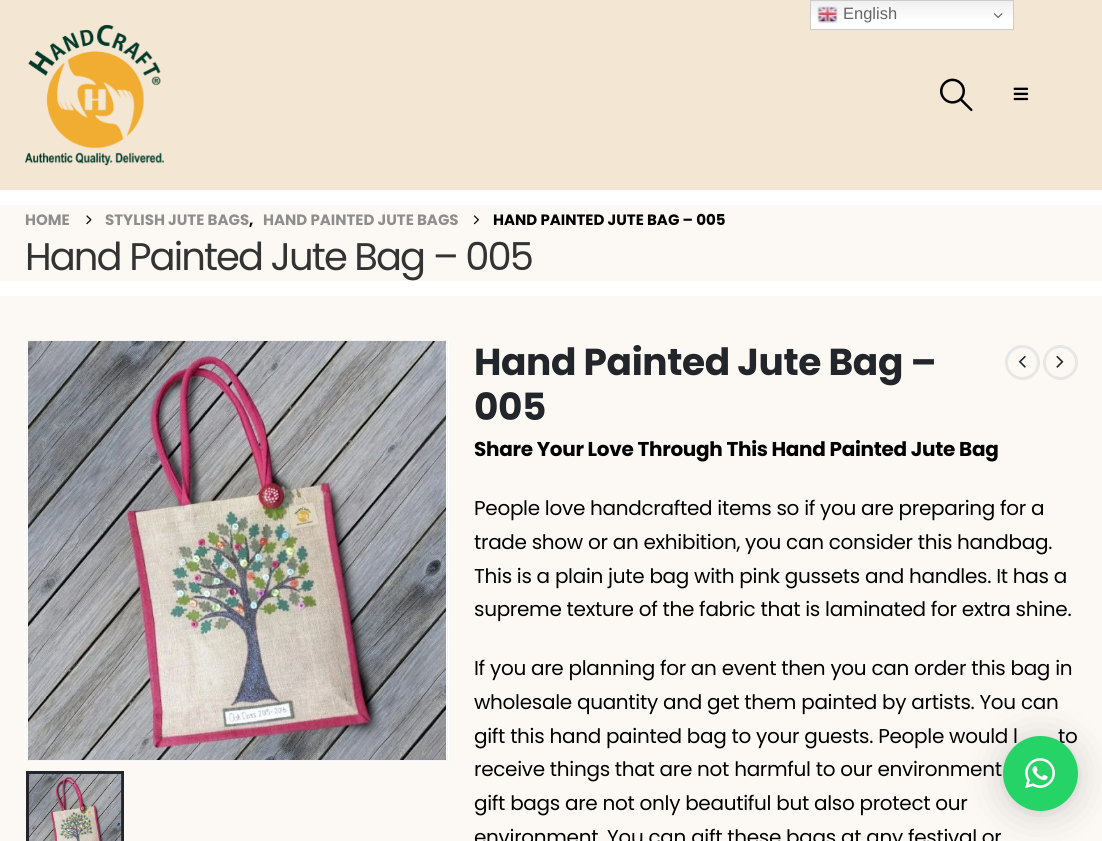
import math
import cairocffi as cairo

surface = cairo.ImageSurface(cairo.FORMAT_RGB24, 1102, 841)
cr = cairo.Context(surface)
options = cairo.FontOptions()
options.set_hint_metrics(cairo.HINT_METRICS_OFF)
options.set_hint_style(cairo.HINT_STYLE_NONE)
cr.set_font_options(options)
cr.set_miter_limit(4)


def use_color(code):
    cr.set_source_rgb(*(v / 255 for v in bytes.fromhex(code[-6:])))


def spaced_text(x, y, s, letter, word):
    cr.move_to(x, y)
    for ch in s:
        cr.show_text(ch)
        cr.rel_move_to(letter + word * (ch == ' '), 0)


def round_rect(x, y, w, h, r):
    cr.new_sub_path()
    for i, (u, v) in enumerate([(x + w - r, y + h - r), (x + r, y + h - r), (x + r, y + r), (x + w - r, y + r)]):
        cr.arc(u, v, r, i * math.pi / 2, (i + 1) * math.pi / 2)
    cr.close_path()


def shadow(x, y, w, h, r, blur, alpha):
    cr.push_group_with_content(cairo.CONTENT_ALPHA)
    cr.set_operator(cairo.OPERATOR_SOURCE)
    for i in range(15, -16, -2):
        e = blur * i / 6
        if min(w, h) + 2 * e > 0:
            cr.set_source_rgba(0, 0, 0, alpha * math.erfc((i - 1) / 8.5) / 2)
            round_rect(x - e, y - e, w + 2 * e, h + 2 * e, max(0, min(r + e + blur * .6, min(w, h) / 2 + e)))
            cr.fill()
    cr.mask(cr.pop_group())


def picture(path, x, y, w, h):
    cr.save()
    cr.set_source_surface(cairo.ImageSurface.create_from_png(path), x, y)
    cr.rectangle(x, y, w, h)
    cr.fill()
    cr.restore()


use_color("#fcf9f5")
cr.paint()
use_color("#f3e6d3")
cr.rectangle(0, 0, 1102, 190)
cr.fill()
gradient = cairo.LinearGradient(912, 0, 912, 30)
gradient.add_color_stop_rgba(0, 0.937, 0.937, 0.937, 1)
gradient.add_color_stop_rgba(0.7, 1, 1, 1, 1)
cr.set_source(gradient)
cr.rectangle(811, 1, 202, 28)
cr.fill()
cr.rectangle(810.5, 0.5, 203, 29)
use_color("#cccccc")
cr.set_line_width(1)
cr.stroke()
picture("img1.png", 817, 6, 21, 18)
cr.select_font_face("Liberation Sans")
cr.set_font_size(16.5)
use_color("#666666")
cr.move_to(843, 19)
cr.show_text("English")
picture("img2.png", 994, 13, 9, 6)
picture("img3.png", 25, 25, 139, 141)
picture("img4.png", 940, 78, 33, 34)
picture("img5.png", 1013, 87, 15, 14)
use_color("#ffffff")
cr.rectangle(0, 190, 1102, 106)
cr.fill()
use_color("#fcf9f5")
cr.rectangle(0, 205, 1102, 76)
cr.fill()
cr.select_font_face("Poppins", cairo.FONT_SLANT_NORMAL, cairo.FONT_WEIGHT_BOLD)
cr.set_font_size(15)
use_color("#8e8e8e")
cr.move_to(25, 225)
cr.show_text("HOME")
picture("img6.png", 86, 215, 6, 10)
cr.move_to(105, 225)
cr.show_text("STYLISH JUTE BAGS")
use_color("#000000")
cr.move_to(249, 225)
cr.show_text(",")
use_color("#8e8e8e")
cr.move_to(263, 225)
cr.show_text("HAND PAINTED JUTE BAGS")
picture("img7.png", 473, 215, 6, 10)
use_color("#000000")
cr.move_to(493, 225)
cr.show_text("HAND PAINTED JUTE BAG – 005")
cr.select_font_face("Poppins")
cr.set_font_size(38.5)
use_color("#333333")
spaced_text(25, 270, "Hand Painted Jute Bag – 005", -1.9, 0)
use_color("#ffffff")
cr.rectangle(25, 340, 424, 421)
cr.fill()
cr.rectangle(26.5, 340.5, 421, 420)
use_color("#f4f4f4")
cr.stroke()
picture("img8.png", 28, 341, 418, 419)
cr.rectangle(27.5, 772.5, 95, 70)
use_color("#222529")
cr.set_line_width(3)
cr.stroke()
picture("img9.png", 29, 774, 93, 67)
cr.select_font_face("Poppins", cairo.FONT_SLANT_NORMAL, cairo.FONT_WEIGHT_BOLD)
cr.set_font_size(37.5)
spaced_text(474, 375, "Hand Painted Jute Bag –", -0.4, 0)
spaced_text(474, 420, "005", -0.4, 0)
cr.new_path()
cr.arc(1022.5, 362.5, 16, 0, 2 * math.pi)
use_color("#e7e7e7")
cr.stroke()
picture("img10.png", 1018, 355, 8, 13)
cr.arc(1060.5, 362.5, 16, 0, 2 * math.pi)
cr.stroke()
picture("img11.png", 1056, 355, 8, 13)
cr.set_font_size(20)
use_color("#000000")
spaced_text(474, 456, "Share Your Love Through This Hand Painted Jute Bag", -0.3, 0)
cr.select_font_face("Poppins")
spaced_text(474, 515, "People love handcrafted items so if you are preparing for a", -0.3, 0)
spaced_text(474, 549, "trade show or an exhibition, you can consider this handbag.", -0.3, 0)
spaced_text(474, 583, "This is a plain jute bag with pink gussets and handles. It has a", -0.3, 0)
spaced_text(474, 616, "supreme texture of the fabric that is laminated for extra shine.", -0.3, 0)
spaced_text(474, 675, "If you are planning for an event then you can order this bag in", -0.3, 0)
spaced_text(474, 709, "wholesale quantity and get them painted by artists. You can", -0.3, 0)
spaced_text(474, 743, "gift this hand painted bag to your guests. People would l", -0.3, 0)
spaced_text(1058, 743, "to", -0.3, 0)
spaced_text(474, 776, "receive things that are not harmful to our environment", -0.3, 0)
spaced_text(474, 810, "gift bags are not only beautiful but also protect our", -0.3, 0)
spaced_text(474, 844, "environment. You can gift these bags at any festival or", -0.3, 0)
use_color("#000000")
shadow(1003, 739, 75, 75, 37.5, 20, 0.16)
shadow(1003, 738, 75, 75, 37.5, 4, 0.06)
use_color("#25d366")
cr.arc(1040.5, 773.5, 37.5, 0, 2 * math.pi)
cr.fill()
picture("img12.png", 1025, 758, 30, 31)
surface.write_to_png("result.png")
